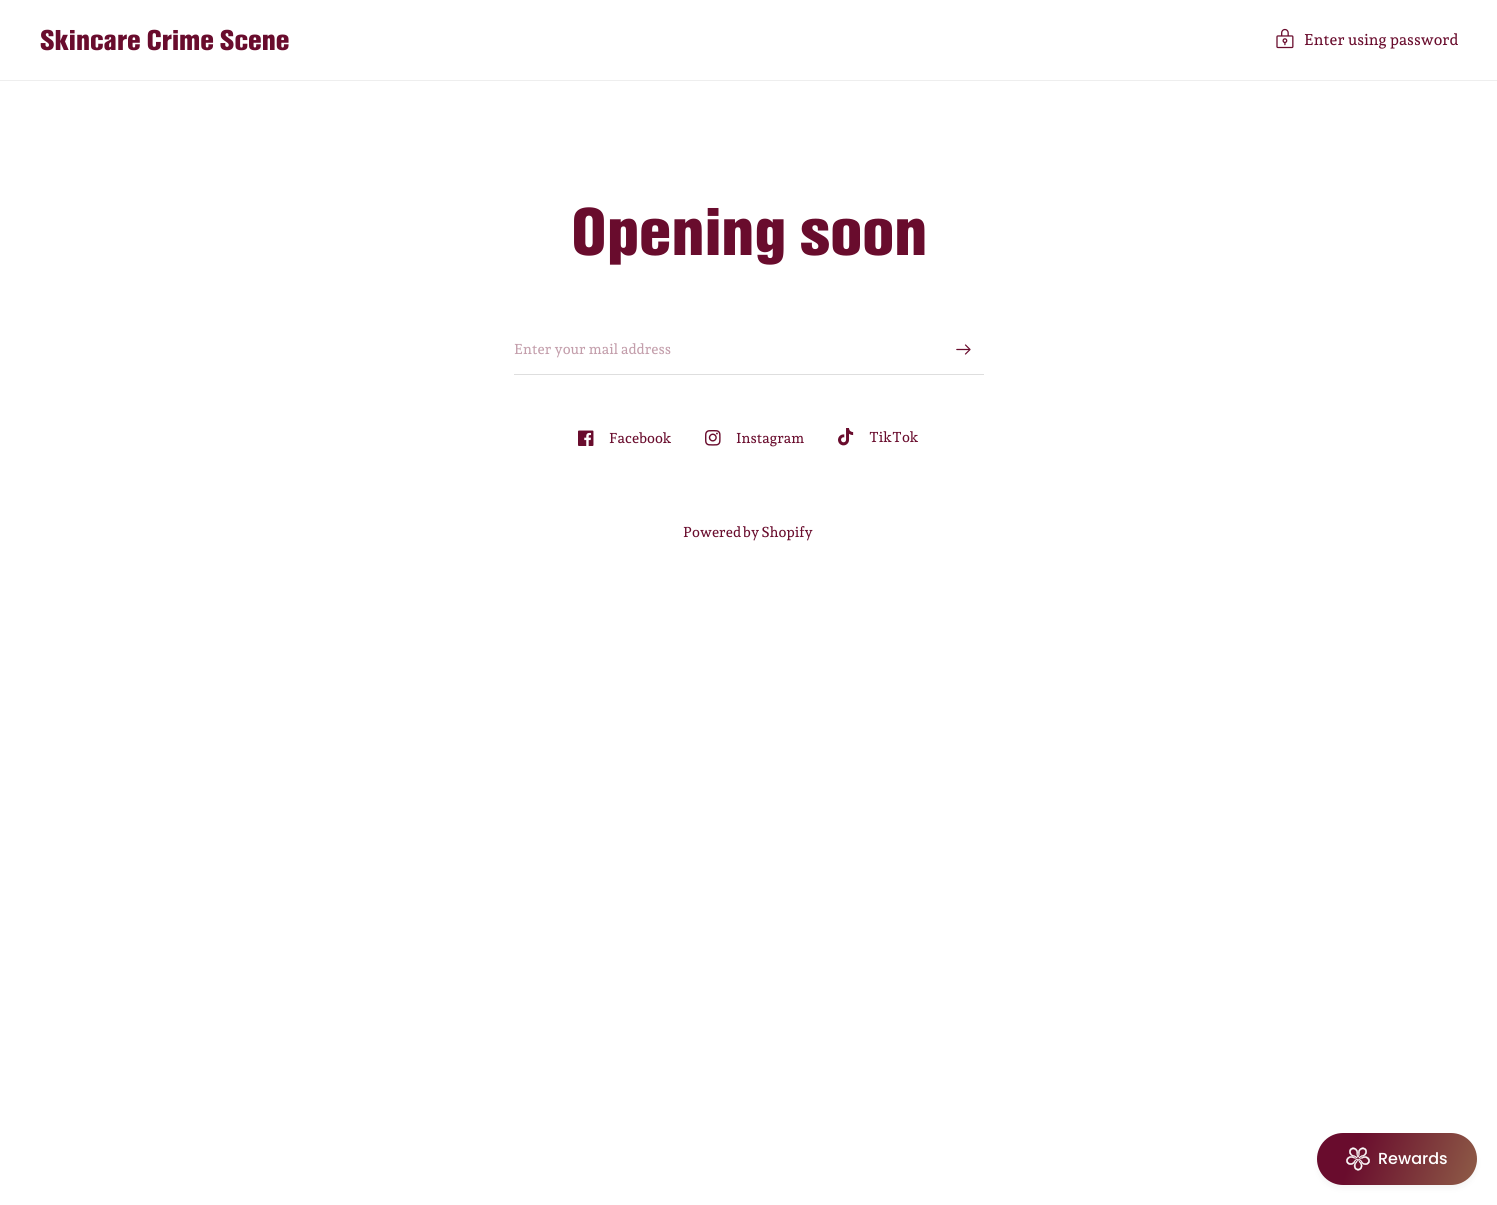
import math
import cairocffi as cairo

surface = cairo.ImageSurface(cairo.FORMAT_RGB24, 1497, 1205)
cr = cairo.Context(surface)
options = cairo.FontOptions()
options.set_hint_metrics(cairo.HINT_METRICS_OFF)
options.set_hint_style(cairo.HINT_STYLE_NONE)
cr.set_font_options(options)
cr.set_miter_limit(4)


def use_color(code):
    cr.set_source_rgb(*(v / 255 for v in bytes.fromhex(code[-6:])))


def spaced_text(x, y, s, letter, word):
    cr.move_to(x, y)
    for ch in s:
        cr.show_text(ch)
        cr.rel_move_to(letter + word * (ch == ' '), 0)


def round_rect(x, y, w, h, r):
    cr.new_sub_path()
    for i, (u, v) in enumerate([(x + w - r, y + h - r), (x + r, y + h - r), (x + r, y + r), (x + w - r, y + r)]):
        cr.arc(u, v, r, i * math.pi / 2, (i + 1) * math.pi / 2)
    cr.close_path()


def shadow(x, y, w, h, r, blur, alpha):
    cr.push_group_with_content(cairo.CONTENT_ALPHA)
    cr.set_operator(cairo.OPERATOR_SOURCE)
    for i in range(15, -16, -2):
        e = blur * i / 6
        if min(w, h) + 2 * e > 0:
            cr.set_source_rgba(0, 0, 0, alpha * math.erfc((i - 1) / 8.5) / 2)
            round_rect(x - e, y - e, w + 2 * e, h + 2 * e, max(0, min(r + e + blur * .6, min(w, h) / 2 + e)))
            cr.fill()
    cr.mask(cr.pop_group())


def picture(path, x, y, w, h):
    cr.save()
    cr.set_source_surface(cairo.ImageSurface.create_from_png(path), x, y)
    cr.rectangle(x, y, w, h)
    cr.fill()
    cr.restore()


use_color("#ffffff")
cr.paint()
use_color("#eeeeee")
cr.rectangle(0, 80, 1497, 1)
cr.fill()
cr.select_font_face("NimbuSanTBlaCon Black")
cr.set_font_size(30)
use_color("#690c2d")
cr.move_to(40, 50)
cr.show_text("Skincare Crime Scene")
picture("img1.png", 1276, 28, 18, 21)
cr.select_font_face("Andada Pro Medium")
cr.set_font_size(15.5)
cr.move_to(1304, 45)
cr.show_text("Enter using password")
cr.select_font_face("NimbuSanTBlaCon Black")
cr.set_font_size(70.5)
cr.move_to(571, 255)
cr.show_text("Opening soon")
use_color("#dedede")
cr.rectangle(514, 374, 470, 1)
cr.fill()
cr.select_font_face("Andada Pro Medium")
cr.set_font_size(14.25)
use_color("#c39eab")
cr.move_to(514, 354)
cr.show_text("Enter your mail address")
picture("img2.png", 956, 344, 15, 11)
picture("img3.png", 578, 430, 16, 16)
use_color("#690c2d")
cr.move_to(609, 443)
cr.show_text("Facebook")
picture("img4.png", 705, 430, 16, 16)
cr.move_to(736, 443)
cr.show_text("Instagram")
picture("img5.png", 838, 428, 16, 18)
cr.move_to(869, 442)
cr.show_text("TikTok")
spaced_text(683, 537, "Powered by Shopify", 0, -1)
use_color("#444444")
shadow(1319, 1139, 156, 48, 24, 4, 0.08)
gradient = cairo.LinearGradient(1318, 1131, 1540, 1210)
gradient.add_color_stop_rgba(0.17, 0.412, 0.047, 0.176, 1)
gradient.add_color_stop_rgba(1, 0.635, 0.529, 0.333, 1)
cr.set_source(gradient)
round_rect(1317, 1133, 160, 52, 26)
cr.fill()
picture("img6.png", 1346, 1147, 24, 24)
cr.select_font_face("Poppins Medium")
cr.set_font_size(16)
use_color("#ffffff")
cr.move_to(1378, 1164)
cr.show_text("Rewards")
surface.write_to_png("result.png")
